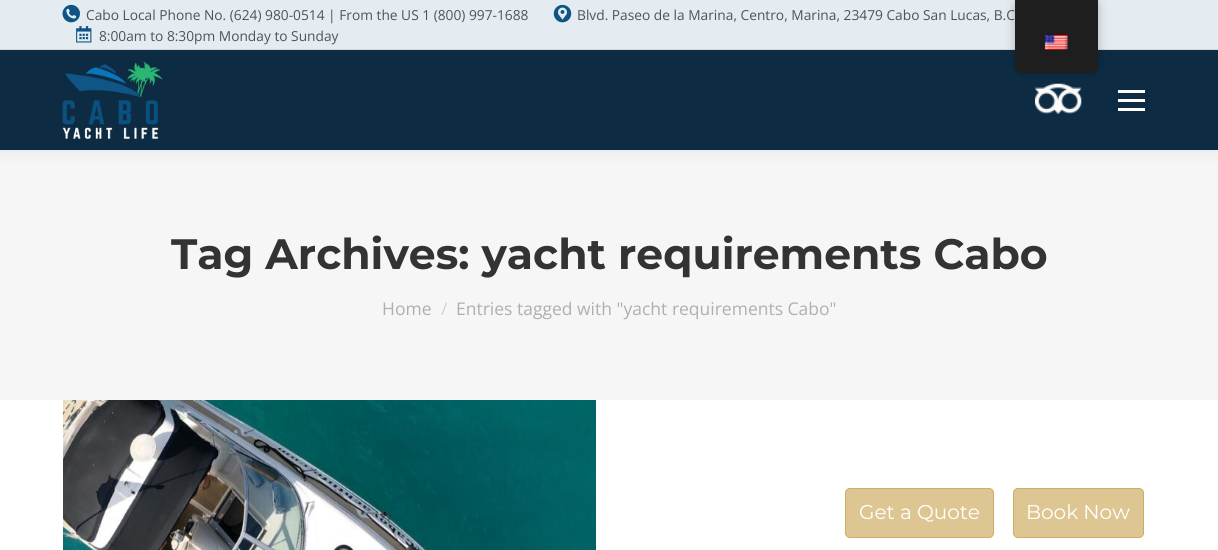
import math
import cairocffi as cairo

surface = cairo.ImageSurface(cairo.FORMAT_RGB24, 1218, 550)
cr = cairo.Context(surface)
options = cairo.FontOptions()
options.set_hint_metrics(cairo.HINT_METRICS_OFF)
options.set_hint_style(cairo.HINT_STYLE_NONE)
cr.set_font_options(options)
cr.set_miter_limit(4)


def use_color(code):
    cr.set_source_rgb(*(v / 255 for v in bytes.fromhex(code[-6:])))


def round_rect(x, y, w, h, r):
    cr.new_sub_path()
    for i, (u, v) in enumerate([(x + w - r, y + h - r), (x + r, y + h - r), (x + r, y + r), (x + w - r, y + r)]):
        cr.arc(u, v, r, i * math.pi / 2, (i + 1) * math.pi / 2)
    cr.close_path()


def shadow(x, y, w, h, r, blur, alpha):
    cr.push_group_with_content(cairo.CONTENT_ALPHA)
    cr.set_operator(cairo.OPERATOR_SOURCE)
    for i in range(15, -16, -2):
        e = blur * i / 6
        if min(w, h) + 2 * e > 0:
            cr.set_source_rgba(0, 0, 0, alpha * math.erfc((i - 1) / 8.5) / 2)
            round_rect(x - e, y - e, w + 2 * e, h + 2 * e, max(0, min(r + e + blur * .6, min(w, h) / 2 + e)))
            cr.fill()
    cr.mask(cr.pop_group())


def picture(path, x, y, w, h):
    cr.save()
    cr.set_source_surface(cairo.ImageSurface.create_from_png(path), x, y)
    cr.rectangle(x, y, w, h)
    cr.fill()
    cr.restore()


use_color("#ffffff")
cr.paint()
use_color("#f6f6f6")
cr.rectangle(0, 150, 1218, 250)
cr.fill()
use_color("#000000")
shadow(-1, -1, 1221, 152, 0, 9.5, 0.07)
use_color("#0d2c43")
cr.rectangle(0, 50, 1218, 100)
cr.fill()
use_color("#e4ecf1")
cr.rectangle(0, 0, 1218, 49)
cr.fill()
picture("img1.png", 62, 4, 18, 19)
cr.select_font_face("Open Sans")
cr.set_font_size(13.75)
use_color("#4f5356")
cr.move_to(86, 20)
cr.show_text("Cabo Local Phone No. (624) 980-0514 | From the US 1 (800) 997-1688")
picture("img2.png", 553, 4, 19, 19)
cr.move_to(577, 20)
cr.show_text("Blvd. Paseo de la Marina, Centro, Marina, 23479 Cabo San Lucas, B.C")
picture("img3.png", 76, 26, 16, 17)
cr.move_to(99, 41)
cr.show_text("8:00am to 8:30pm Monday to Sunday")
use_color("#d1d8dc")
cr.rectangle(0, 49, 1218, 1)
cr.fill()
picture("img4.png", 62, 61, 101, 78)
picture("img5.png", 1035, 83, 47, 31)
use_color("#ffffff")
cr.rectangle(1118, 90, 27, 3)
cr.fill()
cr.rectangle(1118, 99, 27, 3)
cr.fill()
cr.rectangle(1118, 108, 27, 3)
cr.fill()
cr.select_font_face("Montserrat", cairo.FONT_SLANT_NORMAL, cairo.FONT_WEIGHT_BOLD)
cr.set_font_size(42.5)
use_color("#333333")
cr.move_to(171, 269)
cr.show_text("Tag Archives: yacht requirements Cabo")
cr.select_font_face("Open Sans")
cr.set_font_size(17.5)
use_color("#adafb3")
cr.move_to(382, 315)
cr.show_text("Home")
use_color("#d2d3d5")
cr.move_to(441, 315)
cr.show_text("/")
use_color("#adafb3")
cr.move_to(456, 315)
cr.show_text("Entries tagged with \"yacht requirements Cabo\"")
picture("img6.png", 63, 400, 533, 150)
use_color("#000000")
shadow(1015, 0, 83, 73, 6, 5, 0.25)
use_color("#1e1e1e")
cr.new_path()
cr.move_to(1015, 0)
cr.line_to(1098, 0)
cr.line_to(1098, 67)
cr.curve_to(1098, 70.5, 1095.5, 73, 1092, 73)
cr.line_to(1021, 73)
cr.curve_to(1017.5, 73, 1015, 70.5, 1015, 67)
cr.close_path()
cr.fill()
picture("img7.png", 1044, 35, 24, 15)
use_color("#ddc692")
round_rect(845.5, 488.5, 148, 49, 4.5)
cr.fill_preserve()
use_color("#ceac61")
cr.set_line_width(1)
cr.stroke()
cr.select_font_face("Montserrat")
cr.set_font_size(20)
use_color("#ffffff")
cr.move_to(859, 519)
cr.show_text("Get a Quote")
use_color("#ddc692")
round_rect(1013.5, 488.5, 130, 49, 4.5)
cr.fill_preserve()
use_color("#ceac61")
cr.stroke()
use_color("#ffffff")
cr.move_to(1026, 519)
cr.show_text("Book Now")
surface.write_to_png("result.png")
